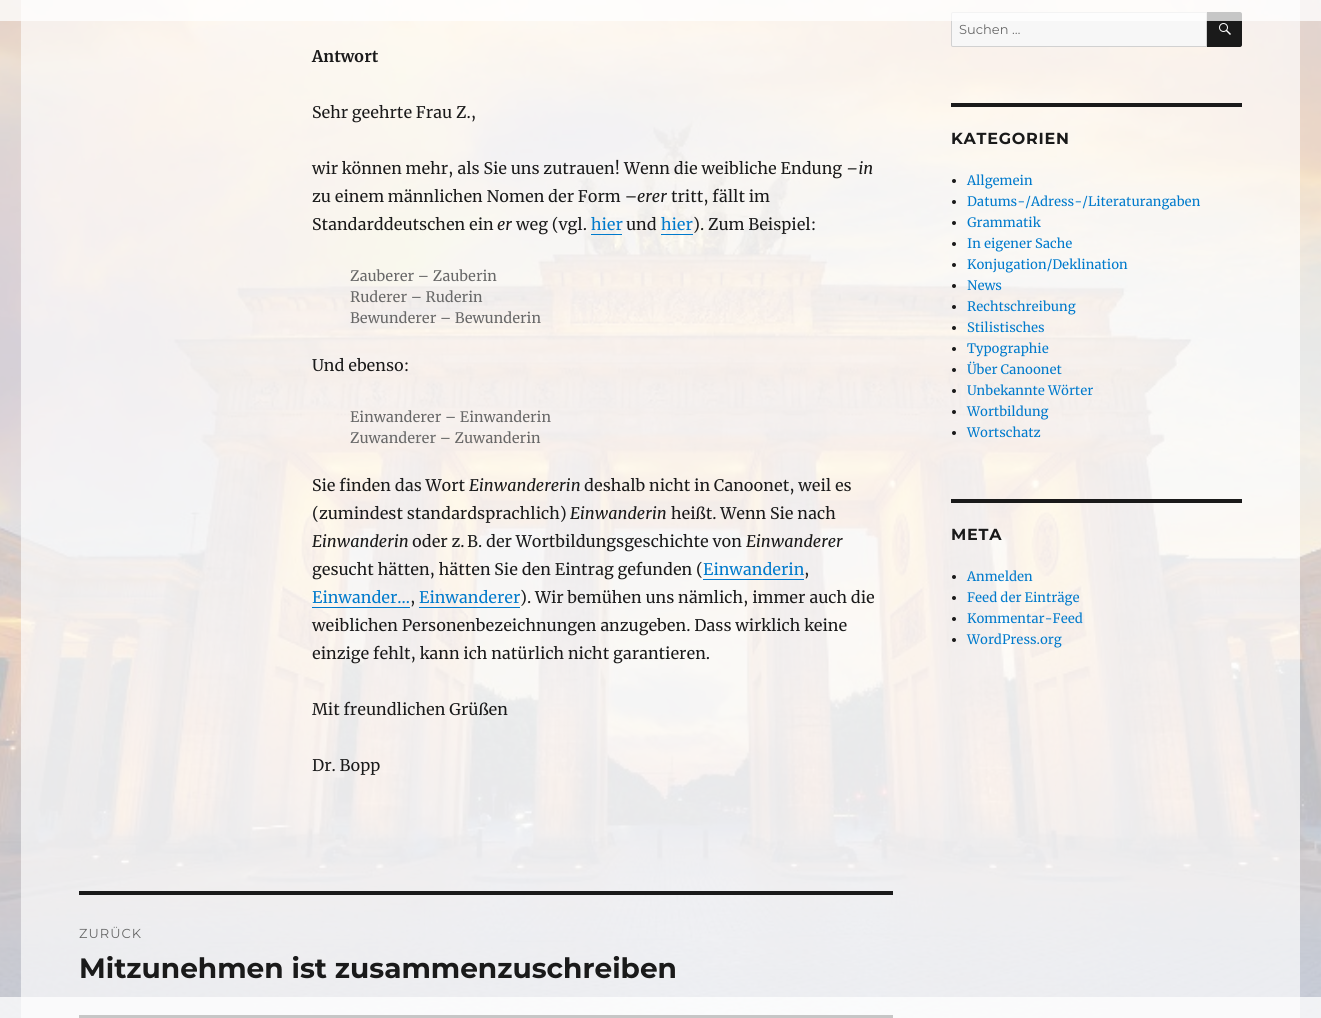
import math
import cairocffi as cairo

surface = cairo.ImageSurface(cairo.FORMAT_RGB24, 1321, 1018)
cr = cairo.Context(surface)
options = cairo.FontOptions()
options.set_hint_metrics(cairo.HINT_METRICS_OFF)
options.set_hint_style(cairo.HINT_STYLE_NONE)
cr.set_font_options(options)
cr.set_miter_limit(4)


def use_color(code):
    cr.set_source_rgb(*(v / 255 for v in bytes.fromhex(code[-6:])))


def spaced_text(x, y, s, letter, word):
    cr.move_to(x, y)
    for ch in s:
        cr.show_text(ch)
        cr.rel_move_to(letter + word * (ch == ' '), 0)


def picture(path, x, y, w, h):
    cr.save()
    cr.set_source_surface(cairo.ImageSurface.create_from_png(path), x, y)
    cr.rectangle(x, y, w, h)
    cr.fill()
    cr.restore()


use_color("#ffffff")
cr.paint()
picture("img1.png", 0, 0, 1321, 1018)
use_color("#f7f7f7")
cr.new_path()
cr.move_to(953, 12.5)
cr.line_to(1206.5, 12.5)
cr.line_to(1206.5, 46.5)
cr.line_to(953, 46.5)
cr.curve_to(952, 46.5, 951.5, 46, 951.5, 45)
cr.line_to(951.5, 14)
cr.curve_to(951.5, 13, 952, 12.5, 953, 12.5)
cr.close_path()
cr.fill_preserve()
use_color("#d1d1d1")
cr.set_line_width(1)
cr.stroke()
use_color("#1a1a1a")
cr.new_path()
cr.move_to(1207, 12)
cr.line_to(1240, 12)
cr.curve_to(1241, 12, 1242, 13, 1242, 14)
cr.line_to(1242, 45)
cr.curve_to(1242, 46, 1241, 47, 1240, 47)
cr.line_to(1207, 47)
cr.close_path()
cr.fill()
cr.set_source_rgba(1, 1, 1, 0.75)
cr.rectangle(0, 0, 1321, 21)
cr.fill()
cr.select_font_face("Merriweather", cairo.FONT_SLANT_NORMAL, cairo.FONT_WEIGHT_BOLD)
cr.set_font_size(16)
use_color("#1a1a1a")
cr.move_to(312, 62)
cr.show_text("Antwort")
cr.select_font_face("Merriweather")
cr.move_to(312, 118)
cr.show_text("Sehr geehrte Frau Z.,")
cr.move_to(312, 174)
cr.show_text("wir können mehr, als Sie uns zutrauen! Wenn die weibliche Endung")
cr.select_font_face("Merriweather", cairo.FONT_SLANT_ITALIC)
cr.move_to(846, 174)
cr.show_text("–in")
cr.select_font_face("Merriweather")
cr.move_to(312, 202)
cr.show_text("zu einem männlichen Nomen der Form –")
cr.select_font_face("Merriweather", cairo.FONT_SLANT_ITALIC)
cr.move_to(637, 202)
cr.show_text("erer")
cr.select_font_face("Merriweather")
cr.move_to(671, 202)
cr.show_text("tritt, fällt im")
cr.move_to(312, 230)
cr.show_text("Standarddeutschen ein")
cr.select_font_face("Merriweather", cairo.FONT_SLANT_ITALIC)
cr.move_to(497, 230)
cr.show_text("er")
cr.select_font_face("Merriweather")
cr.move_to(516, 230)
cr.show_text("weg (vgl.")
use_color("#007acc")
cr.move_to(591, 230)
cr.show_text("hier")
cr.rectangle(591, 234, 31, 1)
cr.fill()
use_color("#1a1a1a")
cr.move_to(626, 230)
cr.show_text("und")
use_color("#007acc")
cr.move_to(661, 230)
cr.show_text("hier")
cr.rectangle(661, 234, 32, 1)
cr.fill()
use_color("#1a1a1a")
cr.move_to(693, 230)
cr.show_text("). Zum Beispiel:")
cr.set_font_size(14.4)
use_color("#686868")
cr.move_to(350, 281)
cr.show_text("Zauberer – Zauberin")
cr.move_to(350, 302)
cr.show_text("Ruderer – Ruderin")
cr.move_to(350, 323)
cr.show_text("Bewunderer – Bewunderin")
cr.set_font_size(16)
use_color("#1a1a1a")
cr.move_to(312, 371)
cr.show_text("Und ebenso:")
cr.set_font_size(14.4)
use_color("#686868")
cr.move_to(350, 422)
cr.show_text("Einwanderer – Einwanderin")
cr.move_to(350, 443)
cr.show_text("Zuwanderer – Zuwanderin")
cr.set_font_size(16)
use_color("#1a1a1a")
cr.move_to(312, 491)
cr.show_text("Sie finden das Wort")
cr.select_font_face("Merriweather", cairo.FONT_SLANT_ITALIC)
cr.move_to(469, 491)
cr.show_text("Einwandererin")
cr.select_font_face("Merriweather")
cr.move_to(584, 491)
cr.show_text("deshalb nicht in Canoonet, weil es")
cr.move_to(312, 519)
cr.show_text("(zumindest standardsprachlich)")
cr.select_font_face("Merriweather", cairo.FONT_SLANT_ITALIC)
cr.move_to(570, 519)
cr.show_text("Einwanderin")
cr.select_font_face("Merriweather")
cr.move_to(671, 519)
cr.show_text("heißt. Wenn Sie nach")
cr.select_font_face("Merriweather", cairo.FONT_SLANT_ITALIC)
cr.move_to(312, 547)
cr.show_text("Einwanderin")
cr.select_font_face("Merriweather")
cr.move_to(412, 547)
cr.show_text("oder z. B. der Wortbildungsgeschichte von")
cr.select_font_face("Merriweather", cairo.FONT_SLANT_ITALIC)
cr.move_to(746, 547)
cr.show_text("Einwanderer")
cr.select_font_face("Merriweather")
cr.move_to(312, 575)
cr.show_text("gesucht hätten, hätten Sie den Eintrag gefunden (")
use_color("#007acc")
cr.move_to(703, 575)
cr.show_text("Einwanderin")
cr.rectangle(703, 579, 101, 1)
cr.fill()
use_color("#1a1a1a")
cr.move_to(804, 575)
cr.show_text(",")
use_color("#007acc")
cr.move_to(312, 603)
cr.show_text("Einwander…")
cr.rectangle(312, 607, 98, 1)
cr.fill()
use_color("#1a1a1a")
cr.move_to(410, 603)
cr.show_text(",")
use_color("#007acc")
cr.move_to(419, 603)
cr.show_text("Einwanderer")
cr.rectangle(419, 607, 101, 1)
cr.fill()
use_color("#1a1a1a")
cr.move_to(520, 603)
cr.show_text("). Wir bemühen uns nämlich, immer auch die")
cr.move_to(312, 631)
cr.show_text("weiblichen Personenbezeichnungen anzugeben. Dass wirklich keine")
cr.move_to(312, 659)
cr.show_text("einzige fehlt, kann ich natürlich nicht garantieren.")
cr.move_to(312, 715)
cr.show_text("Mit freundlichen Grüßen")
cr.move_to(312, 771)
cr.show_text("Dr. Bopp")
cr.rectangle(79, 891, 814, 4)
cr.fill()
cr.select_font_face("Montserrat Thin")
cr.set_font_size(13)
use_color("#686868")
spaced_text(79, 938, "ZURÜCK", 1, 0)
cr.select_font_face("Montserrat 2 Thin")
cr.set_font_size(28)
use_color("#1a1a1a")
cr.move_to(79, 978)
cr.show_text("Mitzunehmen ist zusammenzuschreiben")
cr.rectangle(79, 1015, 814, 3)
cr.fill()
cr.select_font_face("Montserrat Thin")
cr.set_font_size(13)
use_color("#686868")
cr.move_to(959, 34)
cr.show_text("Suchen …")
picture("img2.png", 1219, 23, 12, 12)
use_color("#1a1a1a")
cr.rectangle(951, 103, 291, 4)
cr.fill()
cr.select_font_face("Montserrat 2 Thin")
cr.set_font_size(16)
spaced_text(951, 144, "KATEGORIEN", 0.75, 0)
cr.new_path()
cr.arc(954, 181, 2, 0, 2 * math.pi)
cr.fill()
cr.select_font_face("Merriweather")
cr.set_font_size(13)
use_color("#007acc")
cr.move_to(967, 185)
cr.show_text("Allgemein")
use_color("#1a1a1a")
cr.new_path()
cr.arc(954, 202, 2, 0, 2 * math.pi)
cr.fill()
use_color("#007acc")
cr.move_to(967, 206)
cr.show_text("Datums-/Adress-/Literaturangaben")
use_color("#1a1a1a")
cr.new_path()
cr.arc(954, 223, 2, 0, 2 * math.pi)
cr.fill()
use_color("#007acc")
cr.move_to(967, 227)
cr.show_text("Grammatik")
use_color("#1a1a1a")
cr.new_path()
cr.arc(954, 244, 2, 0, 2 * math.pi)
cr.fill()
use_color("#007acc")
cr.move_to(967, 248)
cr.show_text("In eigener Sache")
use_color("#1a1a1a")
cr.new_path()
cr.arc(954, 265, 2, 0, 2 * math.pi)
cr.fill()
use_color("#007acc")
cr.move_to(967, 269)
cr.show_text("Konjugation/Deklination")
use_color("#1a1a1a")
cr.new_path()
cr.arc(954, 286, 2, 0, 2 * math.pi)
cr.fill()
use_color("#007acc")
cr.move_to(967, 290)
cr.show_text("News")
use_color("#1a1a1a")
cr.new_path()
cr.arc(954, 307, 2, 0, 2 * math.pi)
cr.fill()
use_color("#007acc")
cr.move_to(967, 311)
cr.show_text("Rechtschreibung")
use_color("#1a1a1a")
cr.new_path()
cr.arc(954, 328, 2, 0, 2 * math.pi)
cr.fill()
use_color("#007acc")
cr.move_to(967, 332)
cr.show_text("Stilistisches")
use_color("#1a1a1a")
cr.new_path()
cr.arc(954, 349, 2, 0, 2 * math.pi)
cr.fill()
use_color("#007acc")
cr.move_to(967, 353)
cr.show_text("Typographie")
use_color("#1a1a1a")
cr.new_path()
cr.arc(954, 370, 2, 0, 2 * math.pi)
cr.fill()
use_color("#007acc")
cr.move_to(967, 374)
cr.show_text("Über Canoonet")
use_color("#1a1a1a")
cr.new_path()
cr.arc(954, 391, 2, 0, 2 * math.pi)
cr.fill()
use_color("#007acc")
cr.move_to(967, 395)
cr.show_text("Unbekannte Wörter")
use_color("#1a1a1a")
cr.new_path()
cr.arc(954, 412, 2, 0, 2 * math.pi)
cr.fill()
use_color("#007acc")
cr.move_to(967, 416)
cr.show_text("Wortbildung")
use_color("#1a1a1a")
cr.new_path()
cr.arc(954, 433, 2, 0, 2 * math.pi)
cr.fill()
use_color("#007acc")
cr.move_to(967, 437)
cr.show_text("Wortschatz")
use_color("#1a1a1a")
cr.rectangle(951, 499, 291, 4)
cr.fill()
cr.select_font_face("Montserrat 2 Thin")
cr.set_font_size(16)
spaced_text(951, 540, "META", 0.75, 0)
cr.new_path()
cr.arc(954, 577, 2, 0, 2 * math.pi)
cr.fill()
cr.select_font_face("Merriweather")
cr.set_font_size(13)
use_color("#007acc")
cr.move_to(967, 581)
cr.show_text("Anmelden")
use_color("#1a1a1a")
cr.new_path()
cr.arc(954, 598, 2, 0, 2 * math.pi)
cr.fill()
use_color("#007acc")
cr.move_to(967, 602)
cr.show_text("Feed der Einträge")
use_color("#1a1a1a")
cr.new_path()
cr.arc(954, 619, 2, 0, 2 * math.pi)
cr.fill()
use_color("#007acc")
cr.move_to(967, 623)
cr.show_text("Kommentar-Feed")
use_color("#1a1a1a")
cr.new_path()
cr.arc(954, 640, 2, 0, 2 * math.pi)
cr.fill()
use_color("#007acc")
cr.move_to(967, 644)
cr.show_text("WordPress.org")
cr.set_source_rgba(1, 1, 1, 0.75)
cr.rectangle(0, 997, 1321, 21)
cr.fill()
surface.write_to_png("result.png")
